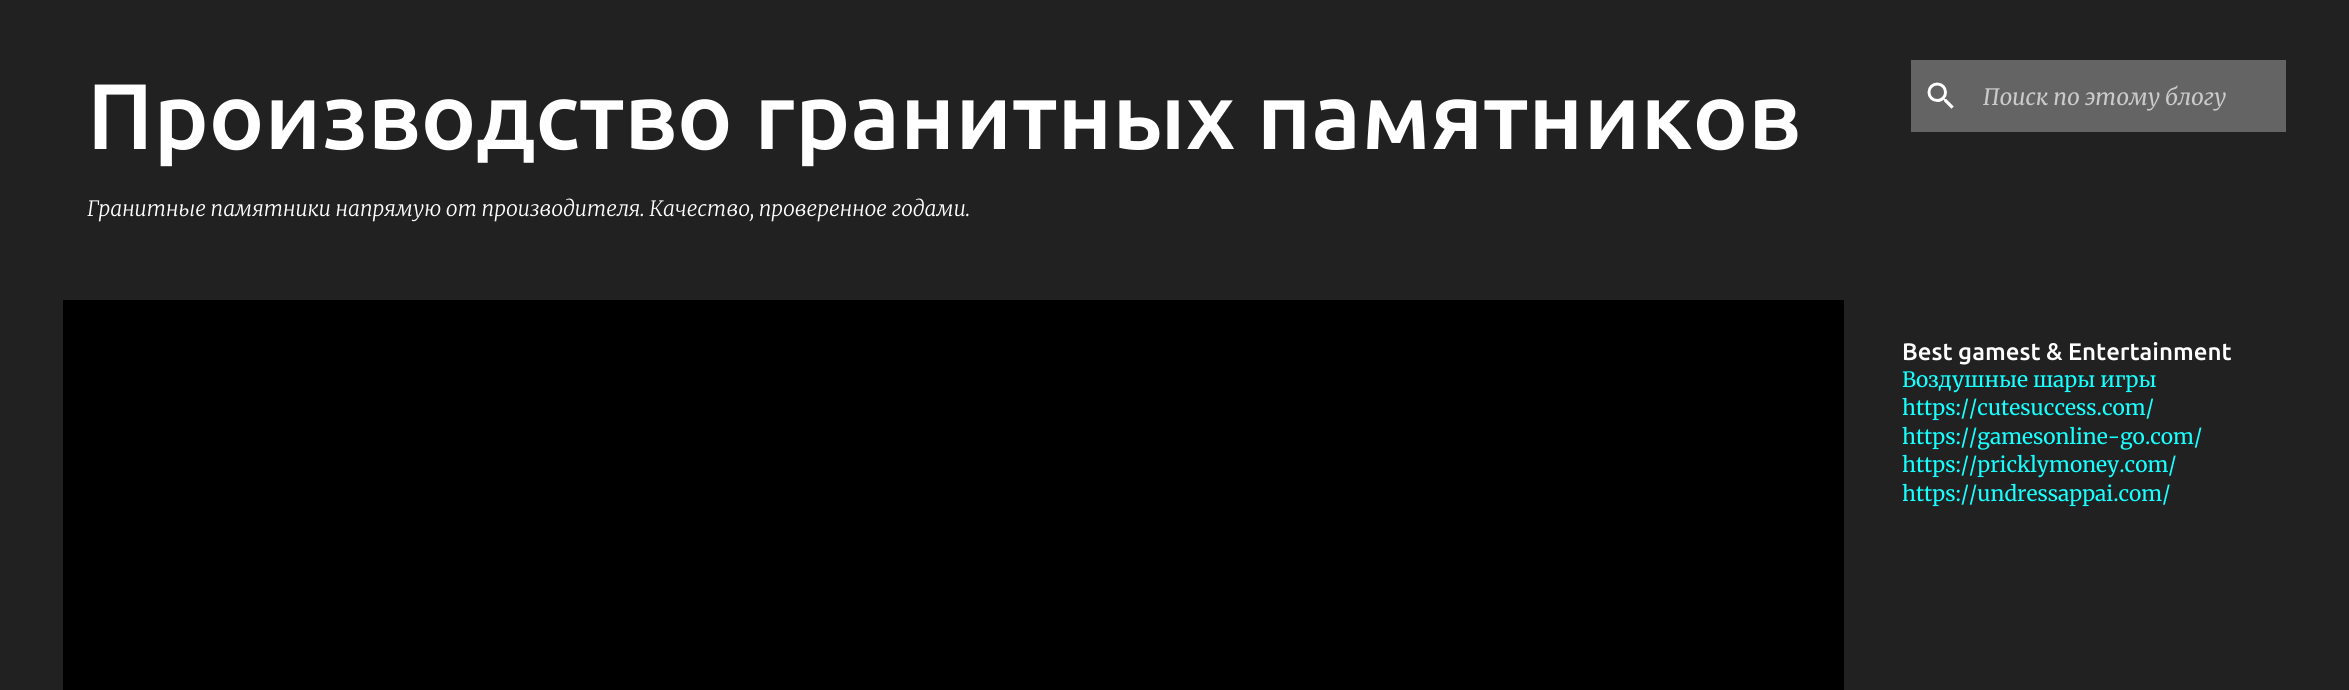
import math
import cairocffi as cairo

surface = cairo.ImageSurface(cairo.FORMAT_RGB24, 2349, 690)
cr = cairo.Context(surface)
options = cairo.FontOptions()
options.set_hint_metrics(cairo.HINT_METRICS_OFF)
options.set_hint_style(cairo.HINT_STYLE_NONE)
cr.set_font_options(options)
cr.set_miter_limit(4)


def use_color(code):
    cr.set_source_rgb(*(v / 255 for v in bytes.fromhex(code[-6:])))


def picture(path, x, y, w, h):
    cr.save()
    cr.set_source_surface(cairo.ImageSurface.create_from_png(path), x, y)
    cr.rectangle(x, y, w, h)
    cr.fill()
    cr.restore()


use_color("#212121")
cr.paint()
cr.select_font_face("Ubuntu Medium")
cr.set_font_size(93)
use_color("#ffffff")
cr.move_to(87, 149)
cr.show_text("Производство гранитных памятников")
cr.select_font_face("Merriweather Light", cairo.FONT_SLANT_ITALIC)
cr.set_font_size(21)
cr.move_to(87, 216)
cr.show_text("Гранитные памятники напрямую от производителя. Качество, проверенное годами.")
use_color("#646464")
cr.rectangle(1911, 60, 375, 72)
cr.fill()
picture("img1.png", 1927, 82, 27, 27)
cr.select_font_face("Merriweather", cairo.FONT_SLANT_ITALIC)
cr.set_font_size(22.5)
use_color("#cacaca")
cr.move_to(1983, 105)
cr.show_text("Поиск по этому блогу")
use_color("#000000")
cr.rectangle(63, 300, 1781, 390)
cr.fill()
cr.select_font_face("Ubuntu Medium")
cr.set_font_size(24)
use_color("#ffffff")
cr.move_to(1902, 360)
cr.show_text("Best gamest & Entertainment")
cr.select_font_face("Merriweather Light")
cr.set_font_size(21)
use_color("#18ffff")
cr.move_to(1902, 387)
cr.show_text("Воздушные шары игры")
cr.move_to(1902, 415)
cr.show_text("https://cutesuccess.com/")
cr.move_to(1902, 444)
cr.show_text("https://gamesonline-go.com/")
cr.move_to(1902, 472)
cr.show_text("https://pricklymoney.com/")
cr.move_to(1902, 501)
cr.show_text("https://undressappai.com/")
surface.write_to_png("result.png")
